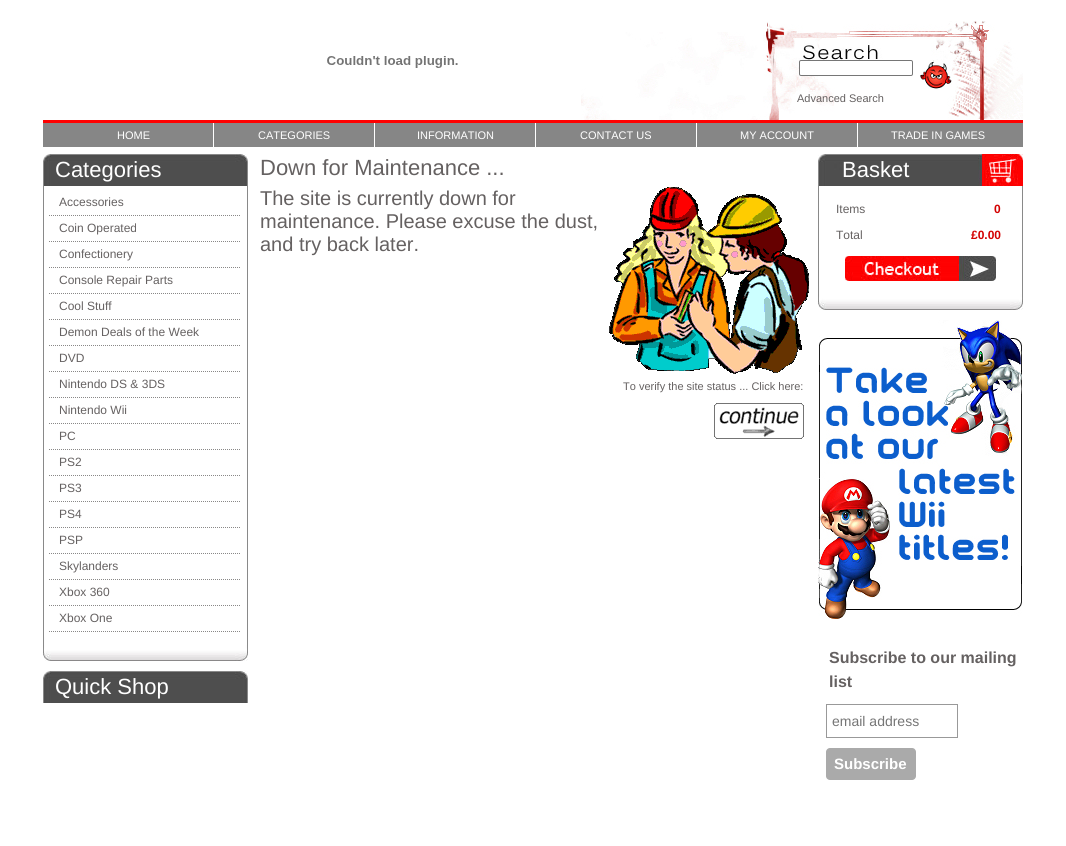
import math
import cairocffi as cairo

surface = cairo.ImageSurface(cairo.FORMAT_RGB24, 1066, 846)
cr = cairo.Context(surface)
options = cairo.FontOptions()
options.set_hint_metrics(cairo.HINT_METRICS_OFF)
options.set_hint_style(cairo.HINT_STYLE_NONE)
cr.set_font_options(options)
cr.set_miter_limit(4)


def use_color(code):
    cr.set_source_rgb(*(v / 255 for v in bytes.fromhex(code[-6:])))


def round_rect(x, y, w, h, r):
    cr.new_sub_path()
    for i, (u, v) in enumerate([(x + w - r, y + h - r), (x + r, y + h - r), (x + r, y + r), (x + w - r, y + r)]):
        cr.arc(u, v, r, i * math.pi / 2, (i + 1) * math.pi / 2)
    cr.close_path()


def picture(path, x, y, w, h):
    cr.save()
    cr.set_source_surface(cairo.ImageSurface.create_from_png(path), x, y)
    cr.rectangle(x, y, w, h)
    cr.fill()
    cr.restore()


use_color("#ffffff")
cr.paint()
picture("img1.png", 581, 21, 442, 99)
use_color("#fe0000")
cr.rectangle(43, 120, 980, 3)
cr.fill()
picture("img2.png", 327, 56, 131, 12)
use_color("#ffffff")
round_rect(799.5, 60.5, 113, 15, 1.5)
cr.fill_preserve()
use_color("#767676")
cr.set_line_width(1)
cr.stroke()
picture("img3.png", 920, 60, 32, 29)
cr.select_font_face("Liberation Sans")
cr.set_font_size(11)
use_color("#656161")
cr.move_to(797, 102)
cr.show_text("Advanced Search")
use_color("#868686")
cr.rectangle(43, 123, 980, 24)
cr.fill()
use_color("#ffffff")
cr.rectangle(213, 123, 1, 24)
cr.fill()
cr.move_to(117, 139)
cr.show_text("HOME")
cr.rectangle(374, 123, 1, 24)
cr.fill()
cr.move_to(258, 139)
cr.show_text("CATEGORIES")
cr.rectangle(535, 123, 1, 24)
cr.fill()
cr.move_to(417, 139)
cr.show_text("INFORMATION")
cr.rectangle(696, 123, 1, 24)
cr.fill()
cr.move_to(580, 139)
cr.show_text("CONTACT US")
cr.rectangle(857, 123, 1, 24)
cr.fill()
cr.move_to(740, 139)
cr.show_text("MY ACCOUNT")
cr.move_to(891, 139)
cr.show_text("TRADE IN GAMES")
picture("img4.png", 43, 154, 205, 32)
cr.set_font_size(22)
cr.move_to(55, 177)
cr.show_text("Categories")
use_color("#898989")
cr.rectangle(247, 186, 1, 451)
cr.fill()
cr.rectangle(43, 186, 1, 451)
cr.fill()
cr.new_path()
cr.move_to(49, 215.5)
cr.line_to(241, 215.5)
use_color("#898887")
cr.set_dash([1, 1])
cr.stroke()
cr.set_font_size(12)
use_color("#656161")
cr.move_to(59, 206)
cr.show_text("Accessories")
cr.new_path()
cr.move_to(49, 241.5)
cr.line_to(241, 241.5)
use_color("#898887")
cr.stroke()
use_color("#656161")
cr.move_to(59, 232)
cr.show_text("Coin Operated")
cr.new_path()
cr.move_to(49, 267.5)
cr.line_to(241, 267.5)
use_color("#898887")
cr.stroke()
use_color("#656161")
cr.move_to(59, 258)
cr.show_text("Confectionery")
cr.new_path()
cr.move_to(49, 293.5)
cr.line_to(241, 293.5)
use_color("#898887")
cr.stroke()
use_color("#656161")
cr.move_to(59, 284)
cr.show_text("Console Repair Parts")
cr.new_path()
cr.move_to(49, 319.5)
cr.line_to(241, 319.5)
use_color("#898887")
cr.stroke()
use_color("#656161")
cr.move_to(59, 310)
cr.show_text("Cool Stuff")
cr.new_path()
cr.move_to(49, 345.5)
cr.line_to(241, 345.5)
use_color("#898887")
cr.stroke()
use_color("#656161")
cr.move_to(59, 336)
cr.show_text("Demon Deals of the Week")
cr.new_path()
cr.move_to(49, 371.5)
cr.line_to(241, 371.5)
use_color("#898887")
cr.stroke()
use_color("#656161")
cr.move_to(59, 362)
cr.show_text("DVD")
cr.new_path()
cr.move_to(49, 397.5)
cr.line_to(241, 397.5)
use_color("#898887")
cr.stroke()
use_color("#656161")
cr.move_to(59, 388)
cr.show_text("Nintendo DS & 3DS")
cr.new_path()
cr.move_to(49, 423.5)
cr.line_to(241, 423.5)
use_color("#898887")
cr.stroke()
use_color("#656161")
cr.move_to(59, 414)
cr.show_text("Nintendo Wii")
cr.new_path()
cr.move_to(49, 449.5)
cr.line_to(241, 449.5)
use_color("#898887")
cr.stroke()
use_color("#656161")
cr.move_to(59, 440)
cr.show_text("PC")
cr.new_path()
cr.move_to(49, 475.5)
cr.line_to(241, 475.5)
use_color("#898887")
cr.stroke()
use_color("#656161")
cr.move_to(59, 466)
cr.show_text("PS2")
cr.new_path()
cr.move_to(49, 501.5)
cr.line_to(241, 501.5)
use_color("#898887")
cr.stroke()
use_color("#656161")
cr.move_to(59, 492)
cr.show_text("PS3")
cr.new_path()
cr.move_to(49, 527.5)
cr.line_to(241, 527.5)
use_color("#898887")
cr.stroke()
use_color("#656161")
cr.move_to(59, 518)
cr.show_text("PS4")
cr.new_path()
cr.move_to(49, 553.5)
cr.line_to(241, 553.5)
use_color("#898887")
cr.stroke()
use_color("#656161")
cr.move_to(59, 544)
cr.show_text("PSP")
cr.new_path()
cr.move_to(49, 579.5)
cr.line_to(241, 579.5)
use_color("#898887")
cr.stroke()
use_color("#656161")
cr.move_to(59, 570)
cr.show_text("Skylanders")
cr.new_path()
cr.move_to(49, 605.5)
cr.line_to(241, 605.5)
use_color("#898887")
cr.stroke()
use_color("#656161")
cr.move_to(59, 596)
cr.show_text("Xbox 360")
cr.new_path()
cr.move_to(49, 631.5)
cr.line_to(241, 631.5)
use_color("#898887")
cr.stroke()
use_color("#656161")
cr.move_to(59, 622)
cr.show_text("Xbox One")
picture("img5.png", 43, 637, 205, 24)
picture("img4.png", 43, 671, 205, 32)
cr.set_font_size(22)
use_color("#ffffff")
cr.move_to(55, 694)
cr.show_text("Quick Shop")
use_color("#656161")
cr.move_to(260, 175)
cr.show_text("Down for Maintenance ...")
cr.set_font_size(20)
cr.move_to(260, 205)
cr.show_text("The site is currently down for")
cr.move_to(260, 228)
cr.show_text("maintenance. Please excuse the dust,")
cr.move_to(260, 251)
cr.show_text("and try back later.")
picture("img6.png", 609, 187, 200, 187)
cr.set_font_size(11)
cr.move_to(623, 390)
cr.show_text("To verify the site status ... Click here:")
picture("img7.png", 714, 403, 90, 36)
picture("img8.png", 818, 154, 205, 32)
cr.set_font_size(22)
use_color("#ffffff")
cr.move_to(842, 177)
cr.show_text("Basket")
use_color("#898989")
cr.rectangle(1022, 186, 1, 100)
cr.fill()
cr.rectangle(818, 186, 1, 100)
cr.fill()
cr.set_font_size(12)
use_color("#656161")
cr.move_to(836, 213)
cr.show_text("Items")
cr.select_font_face("Liberation Sans", cairo.FONT_SLANT_NORMAL, cairo.FONT_WEIGHT_BOLD)
use_color("#d30101")
cr.move_to(994, 213)
cr.show_text("0")
cr.select_font_face("Liberation Sans")
use_color("#656161")
cr.move_to(836, 239)
cr.show_text("Total")
cr.select_font_face("Liberation Sans", cairo.FONT_SLANT_NORMAL, cairo.FONT_WEIGHT_BOLD)
use_color("#d30101")
cr.move_to(971, 239)
cr.show_text("£0.00")
picture("img9.png", 845, 256, 151, 25)
picture("img5.png", 818, 286, 205, 24)
picture("img10.png", 818, 320, 204, 299)
cr.set_font_size(16)
use_color("#656161")
cr.move_to(829, 663)
cr.show_text("Subscribe to our mailing")
cr.move_to(829, 687)
cr.show_text("list")
cr.rectangle(826.5, 704.5, 131, 33)
use_color("#999999")
cr.set_dash([])
cr.stroke()
cr.select_font_face("Liberation Sans")
cr.set_font_size(14)
use_color("#757575")
cr.move_to(832, 726)
cr.show_text("email address")
use_color("#aaaaaa")
round_rect(826, 748, 90, 32, 4)
cr.fill()
cr.select_font_face("Liberation Sans", cairo.FONT_SLANT_NORMAL, cairo.FONT_WEIGHT_BOLD)
cr.set_font_size(15)
use_color("#ffffff")
cr.move_to(834, 769)
cr.show_text("Subscribe")
surface.write_to_png("result.png")
